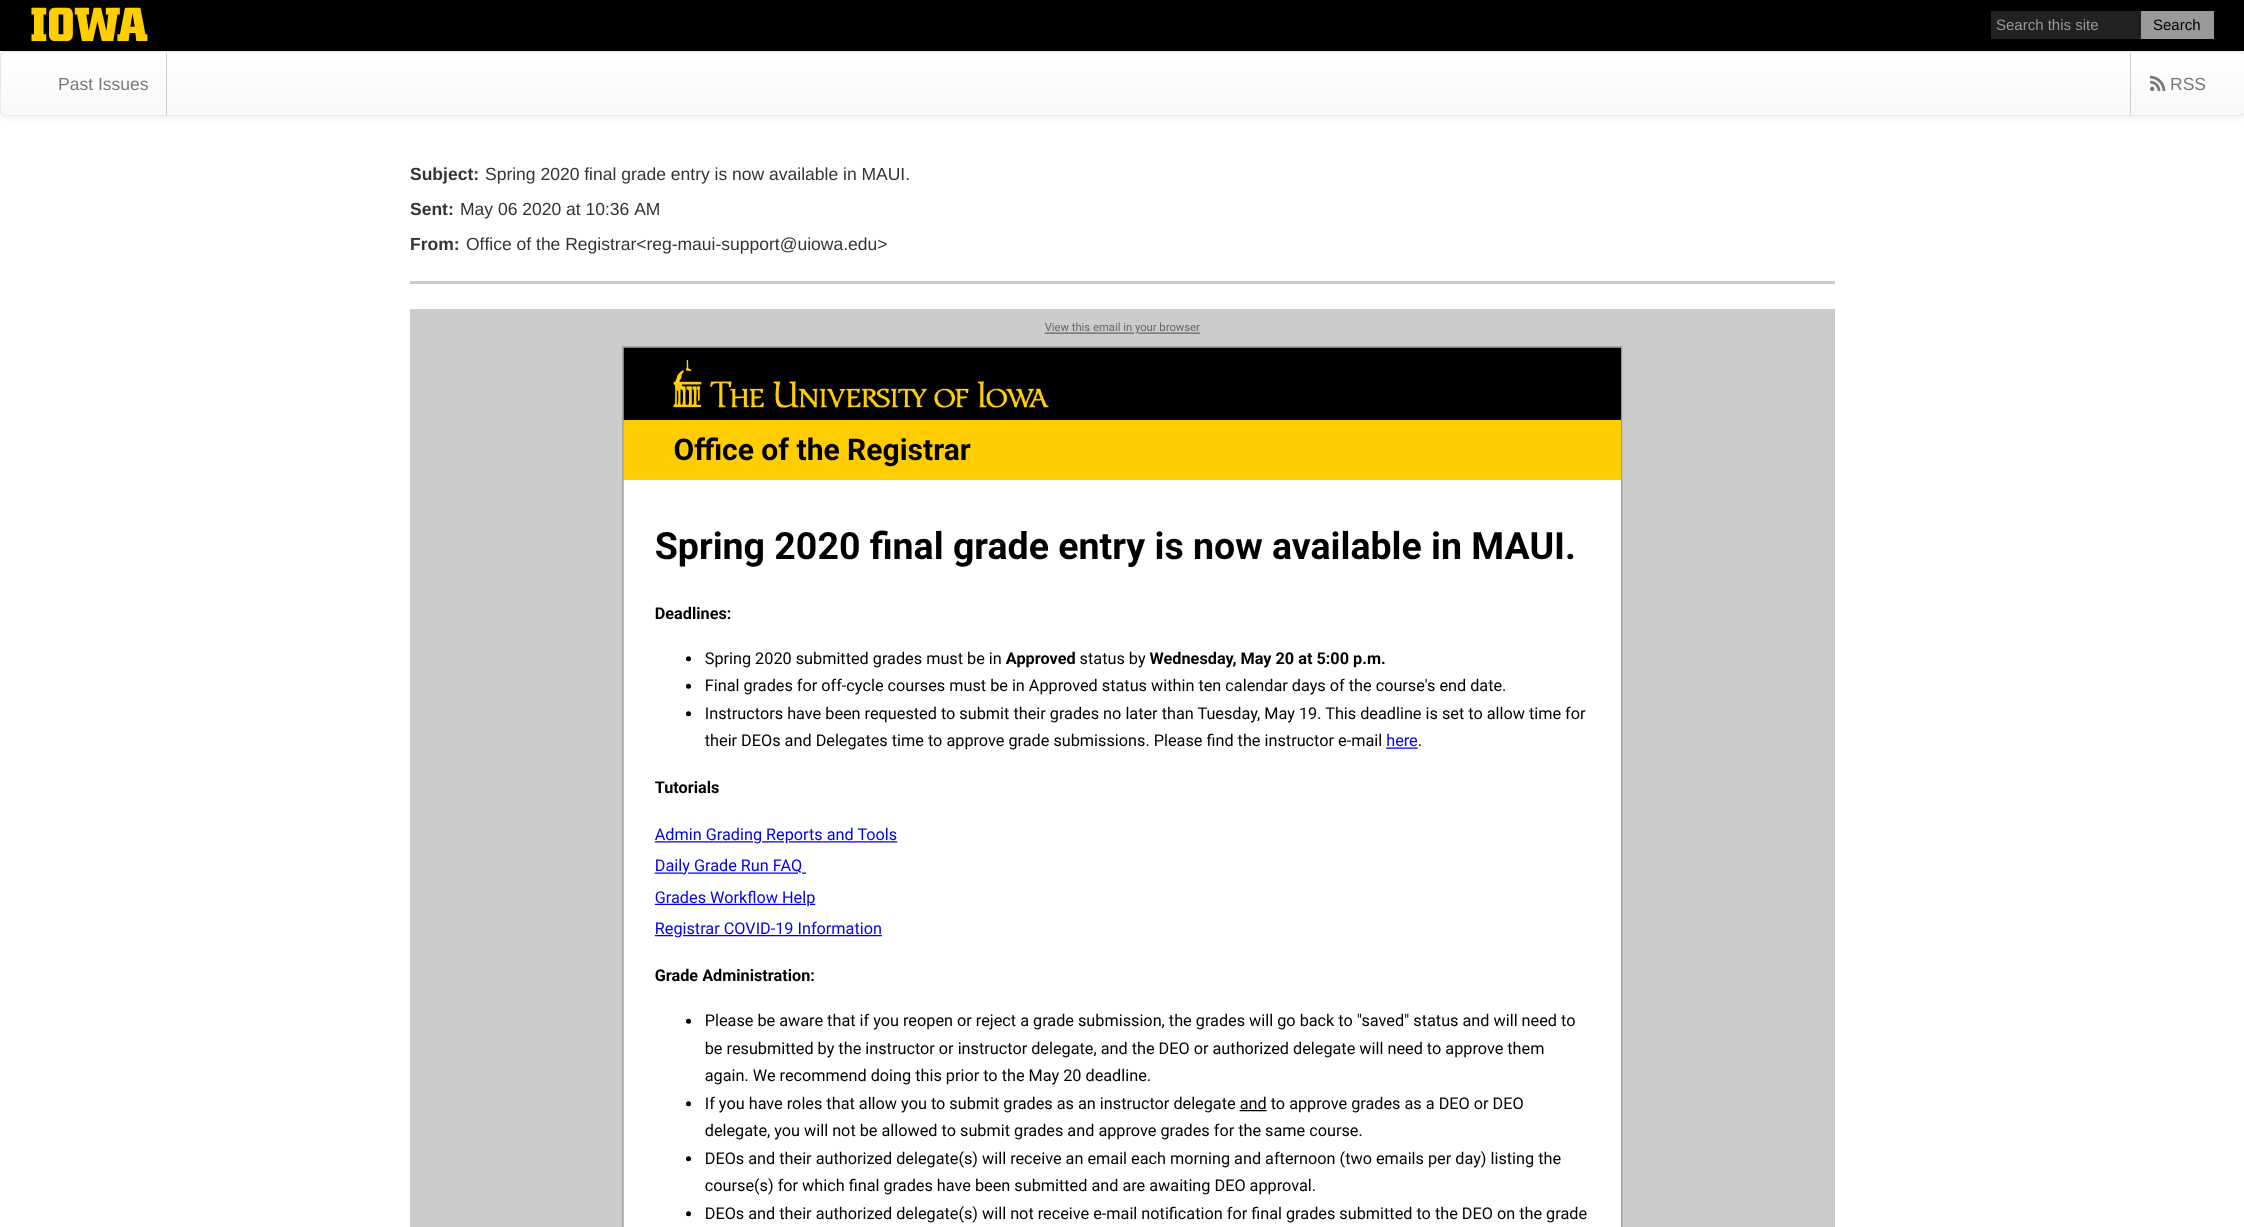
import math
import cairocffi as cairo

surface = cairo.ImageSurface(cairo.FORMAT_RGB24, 2244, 1227)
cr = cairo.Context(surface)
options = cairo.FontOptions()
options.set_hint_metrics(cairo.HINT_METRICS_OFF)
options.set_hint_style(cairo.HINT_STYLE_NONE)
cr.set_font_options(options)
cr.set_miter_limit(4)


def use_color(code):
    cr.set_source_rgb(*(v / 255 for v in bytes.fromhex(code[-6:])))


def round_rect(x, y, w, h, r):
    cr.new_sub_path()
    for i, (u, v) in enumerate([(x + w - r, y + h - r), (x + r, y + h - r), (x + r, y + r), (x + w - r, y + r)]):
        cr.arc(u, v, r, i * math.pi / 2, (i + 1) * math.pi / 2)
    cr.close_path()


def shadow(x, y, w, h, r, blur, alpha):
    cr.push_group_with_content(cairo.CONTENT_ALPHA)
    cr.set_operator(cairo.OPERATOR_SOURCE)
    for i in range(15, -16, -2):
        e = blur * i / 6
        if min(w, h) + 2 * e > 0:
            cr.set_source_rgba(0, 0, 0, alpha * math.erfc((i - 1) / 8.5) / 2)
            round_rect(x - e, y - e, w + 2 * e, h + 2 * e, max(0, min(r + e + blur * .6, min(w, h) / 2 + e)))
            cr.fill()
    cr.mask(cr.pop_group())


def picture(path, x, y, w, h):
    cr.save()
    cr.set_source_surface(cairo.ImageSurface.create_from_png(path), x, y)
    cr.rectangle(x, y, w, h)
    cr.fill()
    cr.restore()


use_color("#ffffff")
cr.paint()
use_color("#000000")
cr.rectangle(0, 0, 2244, 51)
cr.fill()
picture("img1.png", 31, 7, 117, 35)
use_color("#222222")
cr.rectangle(1991, 12, 150, 27)
cr.fill()
use_color("#1f1f1f")
cr.rectangle(1991, 11, 150, 1)
cr.fill()
cr.select_font_face("Liberation Sans")
cr.set_font_size(15)
use_color("#999999")
cr.move_to(1996, 30)
cr.show_text("Search this site")
cr.rectangle(2141, 11, 73, 28)
cr.fill()
use_color("#000000")
cr.move_to(2153, 30)
cr.show_text("Search")
use_color("#000000")
shadow(0, 53, 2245, 65, 5, 3, 0.07)
use_color("#f8f8f8")
round_rect(0, 51, 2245, 65, 5)
cr.fill()
cr.save()
round_rect(0, 51, 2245, 65, 5)
cr.clip()
gradient = cairo.LinearGradient(1123, 52, 1123, 115)
gradient.add_color_stop_rgba(0, 1, 1, 1, 1)
gradient.add_color_stop_rgba(1, 0.973, 0.973, 0.973, 1)
cr.set_source(gradient)
cr.rectangle(0, 53, 2244, 62)
cr.fill()
cr.restore()
round_rect(0.5, 51.5, 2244, 64, 4.5)
use_color("#e7e7e7")
cr.set_line_width(1)
cr.stroke()
use_color("#cccccc")
cr.rectangle(166, 53, 1, 62)
cr.fill()
cr.set_font_size(17.5)
use_color("#777777")
cr.move_to(58, 90)
cr.show_text("Past Issues")
use_color("#cccccc")
cr.rectangle(2130, 53, 1, 62)
cr.fill()
picture("img2.png", 2150, 75, 16, 17)
use_color("#777777")
cr.move_to(2170, 90)
cr.show_text("RSS")
cr.select_font_face("Liberation Sans", cairo.FONT_SLANT_NORMAL, cairo.FONT_WEIGHT_BOLD)
use_color("#333333")
cr.move_to(410, 180)
cr.show_text("Subject:")
cr.select_font_face("Liberation Sans")
cr.move_to(485, 180)
cr.show_text("Spring 2020 final grade entry is now available in MAUI.")
cr.select_font_face("Liberation Sans", cairo.FONT_SLANT_NORMAL, cairo.FONT_WEIGHT_BOLD)
cr.move_to(410, 215)
cr.show_text("Sent:")
cr.select_font_face("Liberation Sans")
cr.move_to(460, 215)
cr.show_text("May 06 2020 at 10:36 AM")
cr.select_font_face("Liberation Sans", cairo.FONT_SLANT_NORMAL, cairo.FONT_WEIGHT_BOLD)
cr.move_to(410, 250)
cr.show_text("From:")
cr.select_font_face("Liberation Sans")
cr.move_to(466, 250)
cr.show_text("Office of the Registrar<reg-maui-support@uiowa.edu>")
use_color("#cccccc")
cr.rectangle(410, 281, 1425, 3)
cr.fill()
cr.rectangle(410.5, 309.5, 1424, 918)
cr.stroke()
picture("img3.png", 411, 310, 1423, 917)
surface.write_to_png("result.png")
